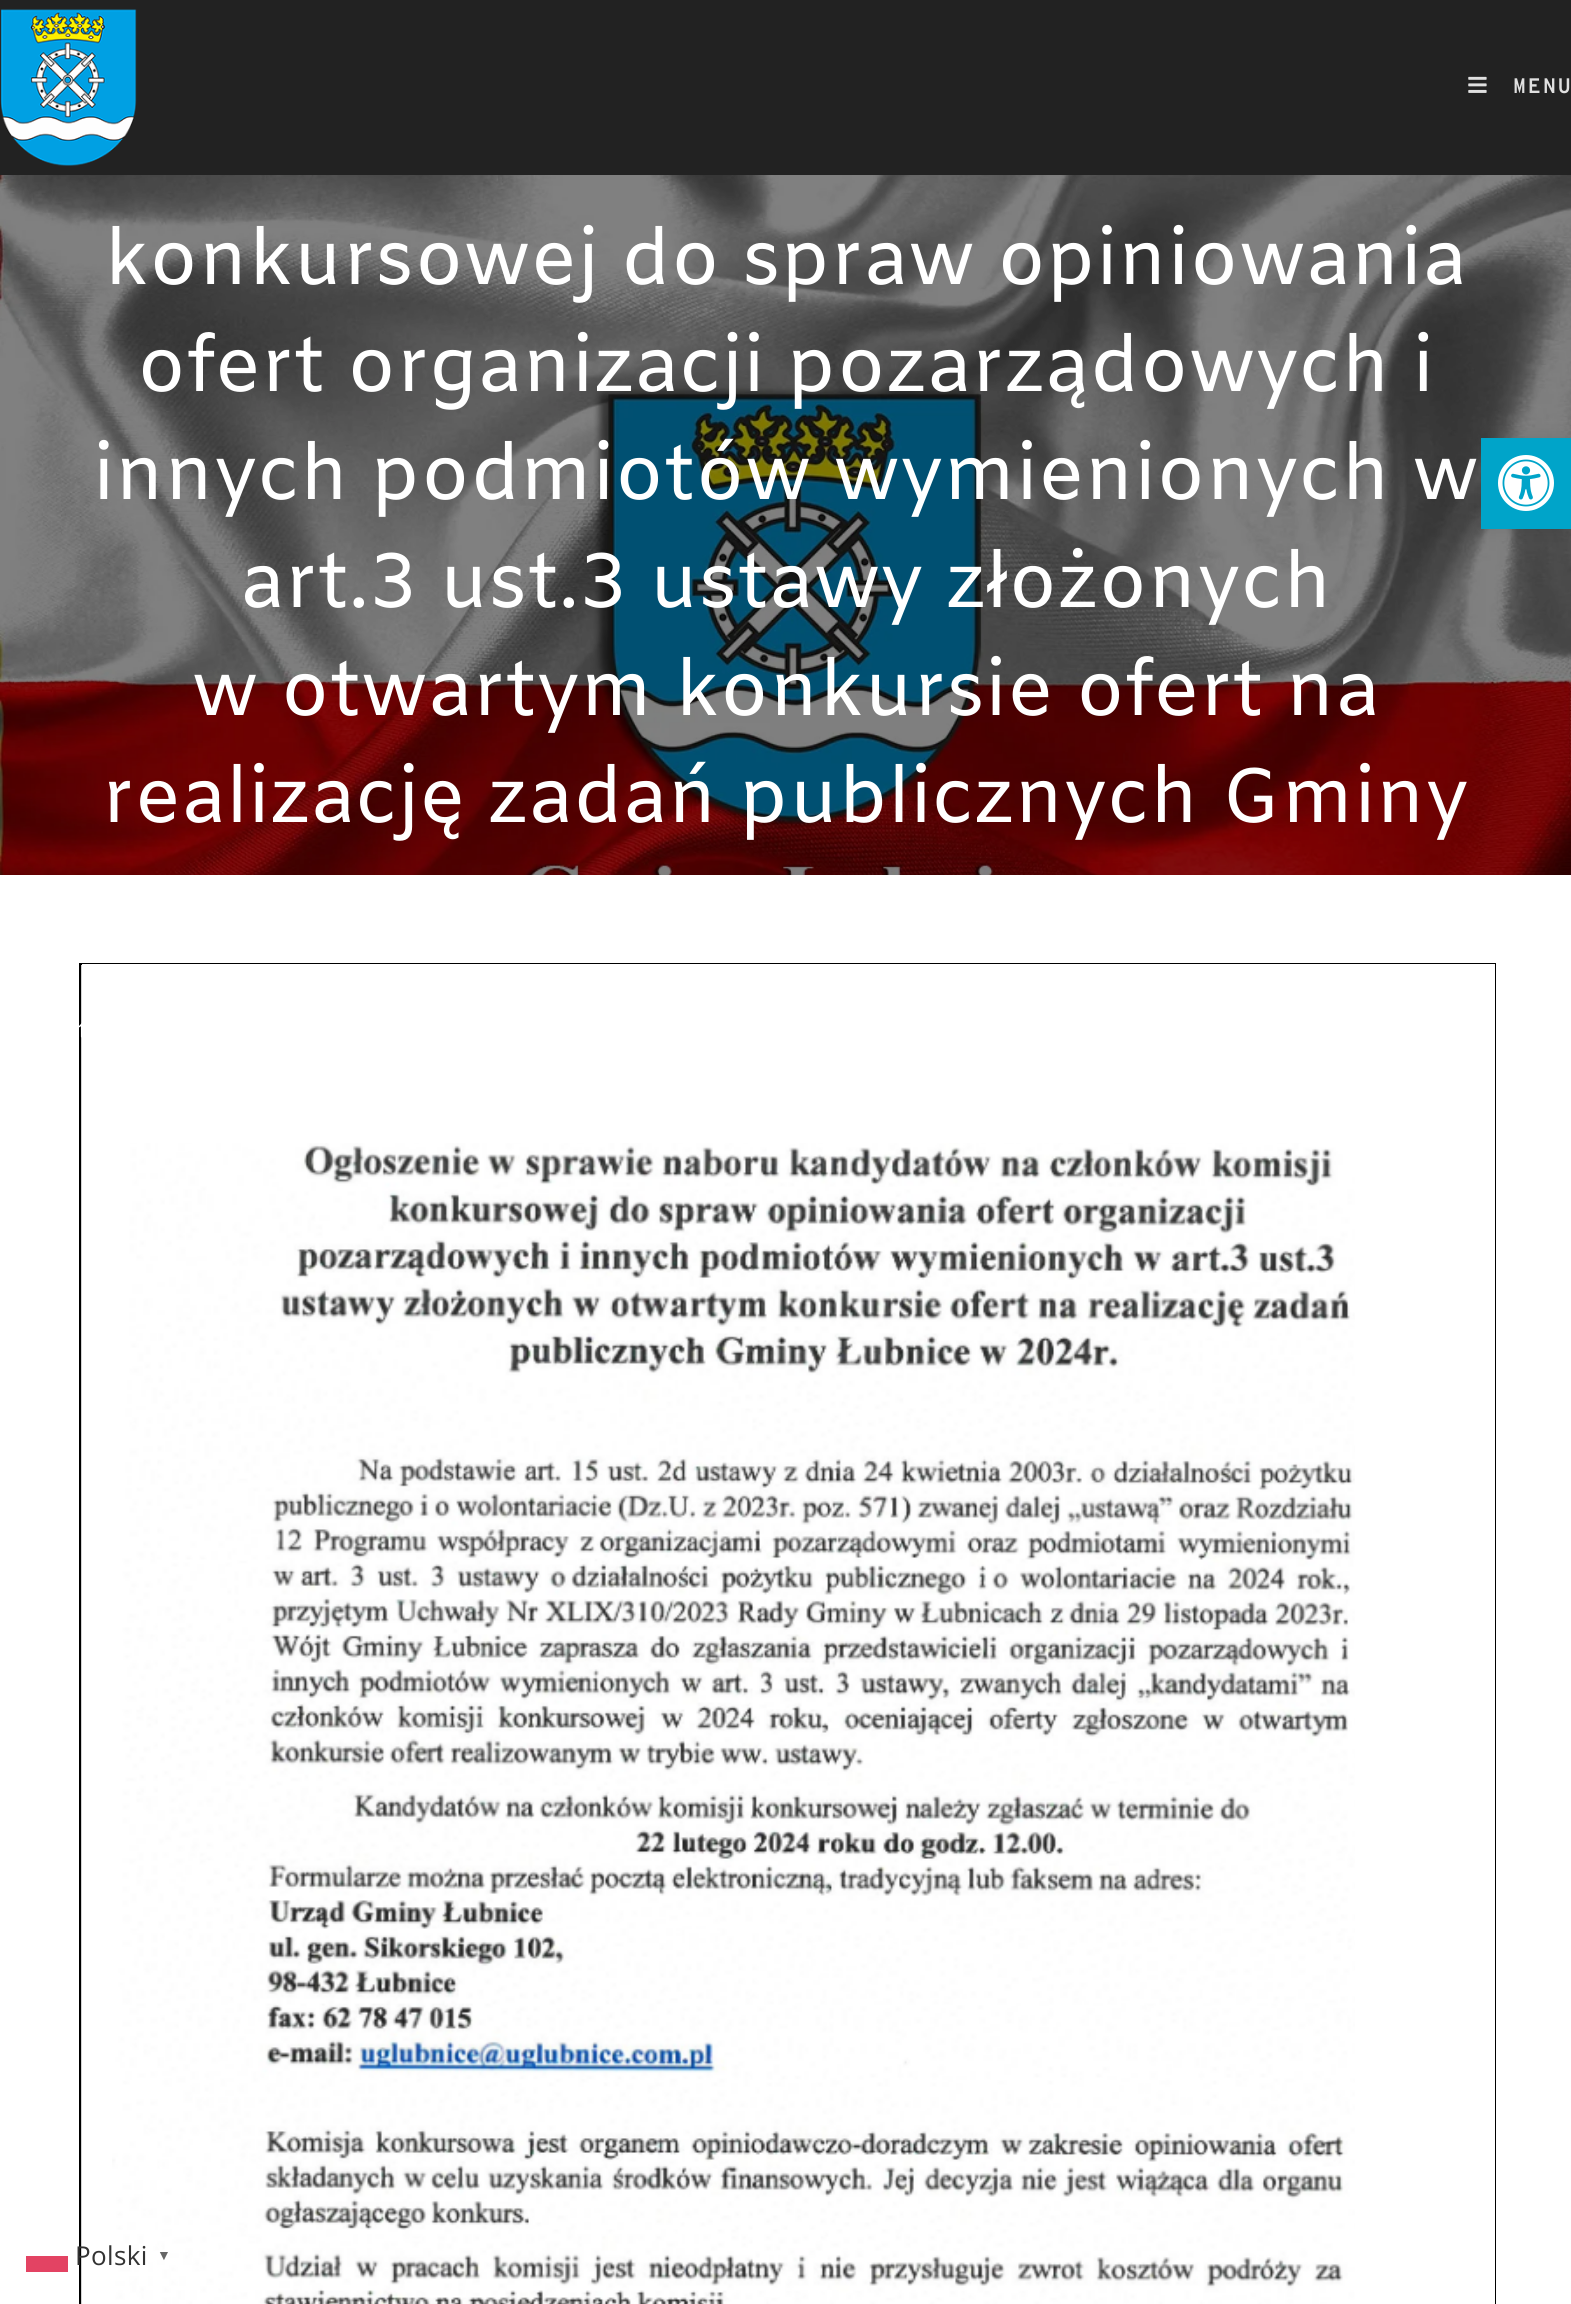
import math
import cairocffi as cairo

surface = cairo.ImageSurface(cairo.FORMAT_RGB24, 1571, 2304)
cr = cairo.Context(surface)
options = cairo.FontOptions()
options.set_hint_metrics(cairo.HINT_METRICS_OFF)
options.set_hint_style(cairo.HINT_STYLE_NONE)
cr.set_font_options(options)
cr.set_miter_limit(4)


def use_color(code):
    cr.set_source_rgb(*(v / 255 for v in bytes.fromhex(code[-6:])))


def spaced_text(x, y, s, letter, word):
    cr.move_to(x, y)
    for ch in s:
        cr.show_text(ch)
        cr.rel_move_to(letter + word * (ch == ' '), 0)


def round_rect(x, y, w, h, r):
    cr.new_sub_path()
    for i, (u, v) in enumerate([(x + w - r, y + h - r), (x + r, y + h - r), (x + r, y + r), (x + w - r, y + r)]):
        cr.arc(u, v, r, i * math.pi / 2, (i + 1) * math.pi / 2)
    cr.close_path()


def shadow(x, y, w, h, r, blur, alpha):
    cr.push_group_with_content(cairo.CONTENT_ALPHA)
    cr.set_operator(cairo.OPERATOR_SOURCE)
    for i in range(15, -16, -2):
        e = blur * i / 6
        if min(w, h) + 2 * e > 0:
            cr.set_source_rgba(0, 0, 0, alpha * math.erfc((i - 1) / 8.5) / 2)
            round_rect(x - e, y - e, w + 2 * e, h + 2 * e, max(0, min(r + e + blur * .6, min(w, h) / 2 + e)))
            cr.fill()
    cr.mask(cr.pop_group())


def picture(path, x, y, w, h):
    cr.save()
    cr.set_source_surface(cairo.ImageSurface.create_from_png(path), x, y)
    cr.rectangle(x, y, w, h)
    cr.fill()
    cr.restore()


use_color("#ffffff")
cr.paint()
use_color("#222222")
cr.rectangle(0, 0, 1571, 175)
cr.fill()
picture("img1.png", 0, 9, 137, 157)
picture("img2.png", 1468, 76, 19, 17)
cr.select_font_face("Overpass Mono", cairo.FONT_SLANT_NORMAL, cairo.FONT_WEIGHT_BOLD)
cr.set_font_size(21)
use_color("#e0e0e0")
spaced_text(1513, 93, "MENU", 2, 0)
picture("img3.png", 0, 175, 1571, 700)
cr.select_font_face("Amiko")
cr.set_font_size(77)
use_color("#ffffff")
spaced_text(104, 284, "konkursowej do spraw opiniowania", 0.35, 0)
spaced_text(137, 391, "ofert organizacji pozarządowych i", 0.35, 0)
spaced_text(93, 499, "innych podmiotów wymienionych w", 0.35, 0)
spaced_text(240, 607, "art.3 ust.3 ustawy złożonych", 0.35, 0)
spaced_text(192, 715, "w otwartym konkursie ofert na", 0.35, 0)
spaced_text(102, 822, "realizację zadań publicznych Gminy", 0.35, 0)
use_color("#d3d3d3")
cr.rectangle(81, 965, 1, 1339)
cr.fill()
cr.rectangle(80, 964, 1415, 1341)
use_color("#000000")
cr.stroke()
picture("img4.png", 79, 1023, 3, 15)
use_color("#ffffff")
cr.rectangle(82, 964, 1413, 1340)
cr.fill()
picture("img5.png", 112, 1143, 1243, 1161)
use_color("#000000")
shadow(1481, 438, 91, 91, 0, 9, 0.1)
use_color("#00a4c9")
cr.rectangle(1481, 438, 90, 91)
cr.fill()
picture("img6.png", 1498, 455, 56, 56)
cr.select_font_face("Open Sans")
cr.set_font_size(26)
use_color("#333333")
spaced_text(75, 2265, "Polski", 0.35, 0)
use_color("#e34363")
cr.rectangle(26, 2256, 42, 16)
cr.fill()
cr.select_font_face("Liberation Sans", cairo.FONT_SLANT_NORMAL, cairo.FONT_WEIGHT_BOLD)
cr.set_font_size(14)
use_color("#666666")
spaced_text(157, 2260, "▼", 0.35, 0)
surface.write_to_png("result.png")
